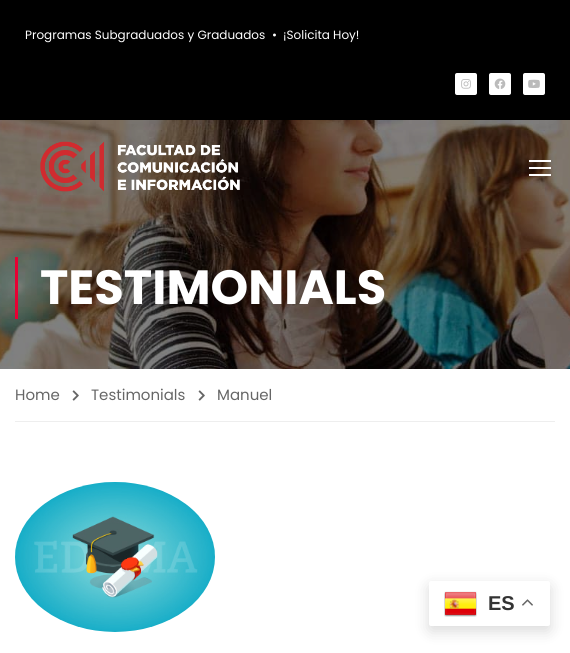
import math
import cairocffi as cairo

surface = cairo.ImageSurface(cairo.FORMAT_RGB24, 570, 653)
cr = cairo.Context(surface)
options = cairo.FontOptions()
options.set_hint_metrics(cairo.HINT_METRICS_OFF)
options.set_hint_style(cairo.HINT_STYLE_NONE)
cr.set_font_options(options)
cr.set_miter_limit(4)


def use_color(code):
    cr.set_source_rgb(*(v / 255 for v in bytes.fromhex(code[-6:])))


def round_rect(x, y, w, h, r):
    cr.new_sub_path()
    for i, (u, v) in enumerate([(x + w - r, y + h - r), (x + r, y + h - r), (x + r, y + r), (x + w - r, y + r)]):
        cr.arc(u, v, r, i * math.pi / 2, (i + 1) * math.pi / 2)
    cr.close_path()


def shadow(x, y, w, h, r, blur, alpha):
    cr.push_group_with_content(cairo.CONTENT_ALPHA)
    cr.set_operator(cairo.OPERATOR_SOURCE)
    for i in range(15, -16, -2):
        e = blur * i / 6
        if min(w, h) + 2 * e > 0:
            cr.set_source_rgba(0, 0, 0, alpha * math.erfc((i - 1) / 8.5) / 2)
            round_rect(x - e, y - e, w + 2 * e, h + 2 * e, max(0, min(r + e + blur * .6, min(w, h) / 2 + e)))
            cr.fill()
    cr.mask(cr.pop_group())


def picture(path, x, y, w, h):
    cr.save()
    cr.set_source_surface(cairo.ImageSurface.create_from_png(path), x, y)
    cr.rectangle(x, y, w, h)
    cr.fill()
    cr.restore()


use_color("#ffffff")
cr.paint()
use_color("#000000")
cr.rectangle(0, 0, 570, 120)
cr.fill()
cr.select_font_face("Poppins")
cr.set_font_size(12)
use_color("#ffffff")
cr.move_to(25, 39)
cr.show_text("Programas Subgraduados y Graduados")
cr.move_to(272, 39)
cr.show_text("•")
cr.move_to(283, 39)
cr.show_text("¡Solicita Hoy!")
round_rect(455, 73, 22, 22, 2)
cr.fill()
picture("img1.png", 461, 79, 10, 10)
round_rect(489, 73, 22, 22, 2)
cr.fill()
picture("img2.png", 494, 78, 12, 11)
round_rect(523, 73, 22, 22, 2)
cr.fill()
picture("img3.png", 528, 79, 12, 9)
picture("img5.png", 0, 120, 570, 249)
picture("img4.png", 40, 141, 200, 51)
cr.rectangle(529, 160, 22, 2)
cr.fill()
cr.rectangle(529, 167, 22, 2)
cr.fill()
cr.rectangle(529, 174, 22, 2)
cr.fill()
use_color("#e70033")
cr.rectangle(15, 257, 3, 62)
cr.fill()
cr.select_font_face("Poppins", cairo.FONT_SLANT_NORMAL, cairo.FONT_WEIGHT_BOLD)
cr.set_font_size(48)
use_color("#ffffff")
cr.move_to(40, 304)
cr.show_text("TESTIMONIALS")
use_color("#eeeeee")
cr.rectangle(15, 421, 540, 1)
cr.fill()
cr.select_font_face("Poppins")
cr.set_font_size(15)
use_color("#666666")
cr.move_to(15, 400)
cr.show_text("Home")
picture("img6.png", 72, 390, 7, 11)
cr.move_to(91, 400)
cr.show_text("Testimonials")
picture("img6.png", 198, 390, 7, 11)
cr.move_to(217, 400)
cr.show_text("Manuel")
picture("img7.png", 15, 482, 200, 150)
use_color("#000000")
shadow(429, 586, 121, 45, 2, 7.5, 0.15)
use_color("#ffffff")
round_rect(429, 581, 121, 45, 2)
cr.fill()
picture("img8.png", 444, 591, 33, 26)
cr.select_font_face("Liberation Sans", cairo.FONT_SLANT_NORMAL, cairo.FONT_WEIGHT_BOLD)
cr.set_font_size(20)
use_color("#333333")
cr.move_to(488, 610)
cr.show_text("ES")
picture("img9.png", 522, 599, 11, 7)
surface.write_to_png("result.png")
